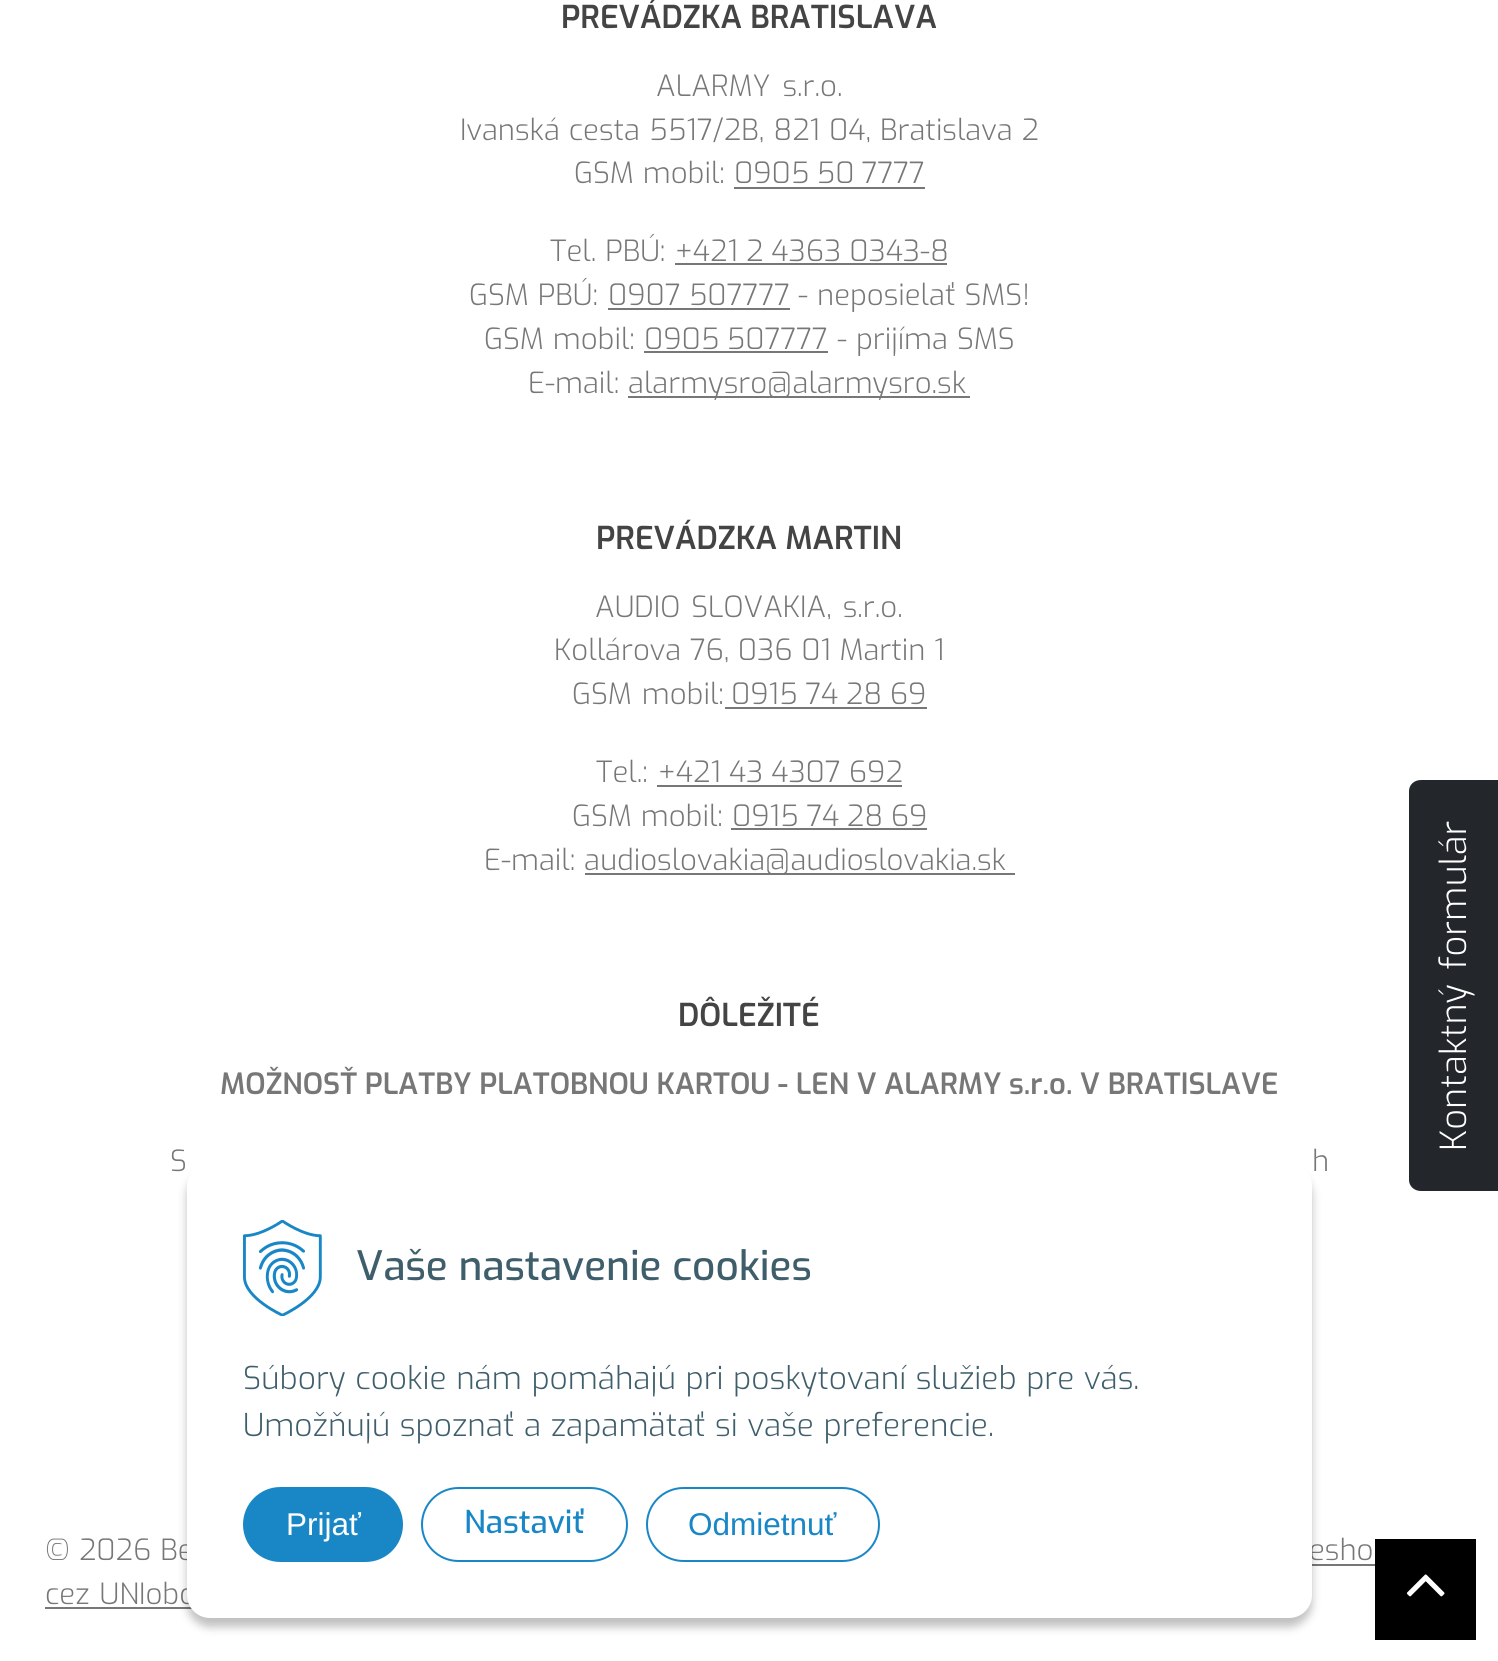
import math
import cairocffi as cairo

surface = cairo.ImageSurface(cairo.FORMAT_RGB24, 1498, 1661)
cr = cairo.Context(surface)
options = cairo.FontOptions()
options.set_hint_metrics(cairo.HINT_METRICS_OFF)
options.set_hint_style(cairo.HINT_STYLE_NONE)
cr.set_font_options(options)
cr.set_miter_limit(4)


def use_color(code):
    cr.set_source_rgb(*(v / 255 for v in bytes.fromhex(code[-6:])))


def spaced_text(x, y, s, letter, word):
    cr.move_to(x, y)
    for ch in s:
        cr.show_text(ch)
        cr.rel_move_to(letter + word * (ch == ' '), 0)


def round_rect(x, y, w, h, r):
    cr.new_sub_path()
    for i, (u, v) in enumerate([(x + w - r, y + h - r), (x + r, y + h - r), (x + r, y + r), (x + w - r, y + r)]):
        cr.arc(u, v, r, i * math.pi / 2, (i + 1) * math.pi / 2)
    cr.close_path()


def shadow(x, y, w, h, r, blur, alpha):
    cr.push_group_with_content(cairo.CONTENT_ALPHA)
    cr.set_operator(cairo.OPERATOR_SOURCE)
    for i in range(15, -16, -2):
        e = blur * i / 6
        if min(w, h) + 2 * e > 0:
            cr.set_source_rgba(0, 0, 0, alpha * math.erfc((i - 1) / 8.5) / 2)
            round_rect(x - e, y - e, w + 2 * e, h + 2 * e, max(0, min(r + e + blur * .6, min(w, h) / 2 + e)))
            cr.fill()
    cr.mask(cr.pop_group())


def picture(path, x, y, w, h):
    cr.save()
    cr.set_source_surface(cairo.ImageSurface.create_from_png(path), x, y)
    cr.rectangle(x, y, w, h)
    cr.fill()
    cr.restore()


use_color("#ffffff")
cr.paint()
cr.select_font_face("Exo SemiBold")
cr.set_font_size(31.5)
use_color("#444444")
cr.move_to(561, 28)
cr.show_text("PREVÁDZKA BRATISLAVA")
cr.select_font_face("Exo Light")
cr.set_font_size(29.25)
use_color("#777777")
spaced_text(656, 96, "ALARMY s.r.o.", 0, 4)
spaced_text(460, 140, "Ivanská cesta 5517/2B, 821 04, Bratislava 2", 0, 1)
spaced_text(574, 183, "GSM mobil:", 0, 1)
spaced_text(734, 183, "0905 50 7777", 0, -1)
cr.rectangle(734, 187, 191, 2)
cr.fill()
spaced_text(550, 261, "Tel. PBÚ:", 0, 1)
cr.move_to(675, 261)
cr.show_text("+421 2 4363 0343-8")
cr.rectangle(675, 263, 272, 2)
cr.fill()
spaced_text(469, 305, "GSM PBÚ:", 0, 1)
cr.move_to(608, 305)
cr.show_text("0907 507777")
cr.rectangle(608, 308, 182, 2)
cr.fill()
spaced_text(798, 305, "- neposielať SMS!", 0, 1)
spaced_text(484, 349, "GSM mobil:", 0, 1)
spaced_text(644, 349, "0905 507777", 0, -1)
cr.rectangle(644, 351, 184, 2)
cr.fill()
spaced_text(837, 349, "- prijíma SMS", 0, 1)
cr.move_to(528, 393)
cr.show_text("E-mail:")
cr.rectangle(628, 396, 342, 2)
cr.fill()
cr.move_to(628, 393)
cr.show_text("alarmysro@alarmysro.sk")
cr.select_font_face("Exo SemiBold")
cr.set_font_size(31.5)
use_color("#444444")
cr.move_to(596, 549)
cr.show_text("PREVÁDZKA MARTIN")
cr.select_font_face("Exo Light")
cr.set_font_size(29.25)
use_color("#777777")
spaced_text(595, 617, "AUDIO SLOVAKIA, s.r.o.", 0, 3)
spaced_text(554, 660, "Kollárova 76, 036 01 Martin 1", 0, 0.5)
spaced_text(572, 704, "GSM mobil:", 0, 2)
spaced_text(731, 704, "0915 74 28 69", 0, -0.5)
cr.rectangle(725, 707, 202, 2)
cr.fill()
cr.move_to(596, 782)
cr.show_text("Tel.:")
cr.move_to(658, 782)
cr.show_text("+421 43 4307 692")
cr.rectangle(657, 785, 245, 2)
cr.fill()
spaced_text(572, 826, "GSM mobil:", 0, 1)
spaced_text(732, 826, "0915 74 28 69", 0, -0.5)
cr.rectangle(731, 828, 196, 2)
cr.fill()
cr.move_to(484, 870)
cr.show_text("E-mail:")
cr.rectangle(585, 873, 430, 2)
cr.fill()
cr.move_to(584, 870)
cr.show_text("audioslovakia@audioslovakia.sk")
cr.select_font_face("Exo SemiBold")
cr.set_font_size(31.5)
use_color("#444444")
cr.move_to(678, 1026)
cr.show_text("DÔLEŽITÉ")
cr.set_font_size(29.25)
use_color("#777777")
cr.move_to(220, 1094)
cr.show_text("MOŽNOSŤ PLATBY PLATOBNOU KARTOU - LEN V ALARMY s.r.o. V BRATISLAVE")
cr.select_font_face("Exo Light")
spaced_text(170, 1171, "S", 0, 1)
spaced_text(1312, 1171, "h", 0, 1)
spaced_text(45, 1560, "© 2026 Be", 0, 1)
spaced_text(1309, 1560, "esho", 0, 1)
cr.rectangle(1312, 1564, 63, 2)
cr.fill()
spaced_text(45, 1604, "cez UNIobc", 0, 2)
cr.rectangle(45, 1607, 147, 2)
cr.fill()
use_color("#000000")
cr.rectangle(1375, 1539, 101, 101)
cr.fill()
picture("img1.png", 1406, 1574, 39, 23)
use_color("#23272b")
cr.new_path()
cr.move_to(1409, 1180)
cr.line_to(1409, 791)
cr.curve_to(1409, 785, 1414, 780, 1421, 780)
cr.line_to(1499, 780)
cr.line_to(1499, 1191)
cr.line_to(1421, 1191)
cr.curve_to(1414, 1191, 1409, 1186, 1409, 1180)
cr.close_path()
cr.fill()
cr.set_font_size(36)
use_color("#ffffff")
cr.save()
cr.translate(1466, 1151)
cr.rotate(-90 * math.pi / 180)
spaced_text(0, 0, "Kontaktný formulár", 0, 5)
cr.restore()
use_color("#000000")
shadow(187, 1172, 1125, 455, 23, 4.5, 0.25)
use_color("#ffffff")
round_rect(187, 1163, 1125, 455, 23)
cr.fill()
picture("img2.png", 243, 1220, 79, 96)
cr.select_font_face("Exo Medium")
cr.set_font_size(40.5)
use_color("#3f5e6c")
cr.move_to(356, 1280)
cr.show_text("Vaše nastavenie cookies")
cr.select_font_face("Exo Light")
cr.set_font_size(31.5)
spaced_text(243, 1389, "Súbory cookie nám pomáhajú pri poskytovaní služieb pre vás.", 0, 1)
spaced_text(243, 1436, "Umožňujú spoznať a zapamätať si vaše preferencie.", 0, 1)
use_color("#1987c6")
round_rect(244, 1488, 158, 73, 36.5)
cr.fill_preserve()
cr.stroke()
cr.select_font_face("Liberation Sans")
use_color("#ffffff")
cr.move_to(286, 1535)
cr.show_text("Prijať")
round_rect(422, 1488, 205, 73, 36.5)
use_color("#1987c6")
cr.stroke()
cr.select_font_face("Exo Medium")
cr.move_to(464, 1533)
cr.show_text("Nastaviť")
round_rect(647, 1488, 232, 73, 36.5)
cr.stroke()
cr.select_font_face("Liberation Sans")
cr.move_to(688, 1535)
cr.show_text("Odmietnuť")
surface.write_to_png("result.png")
